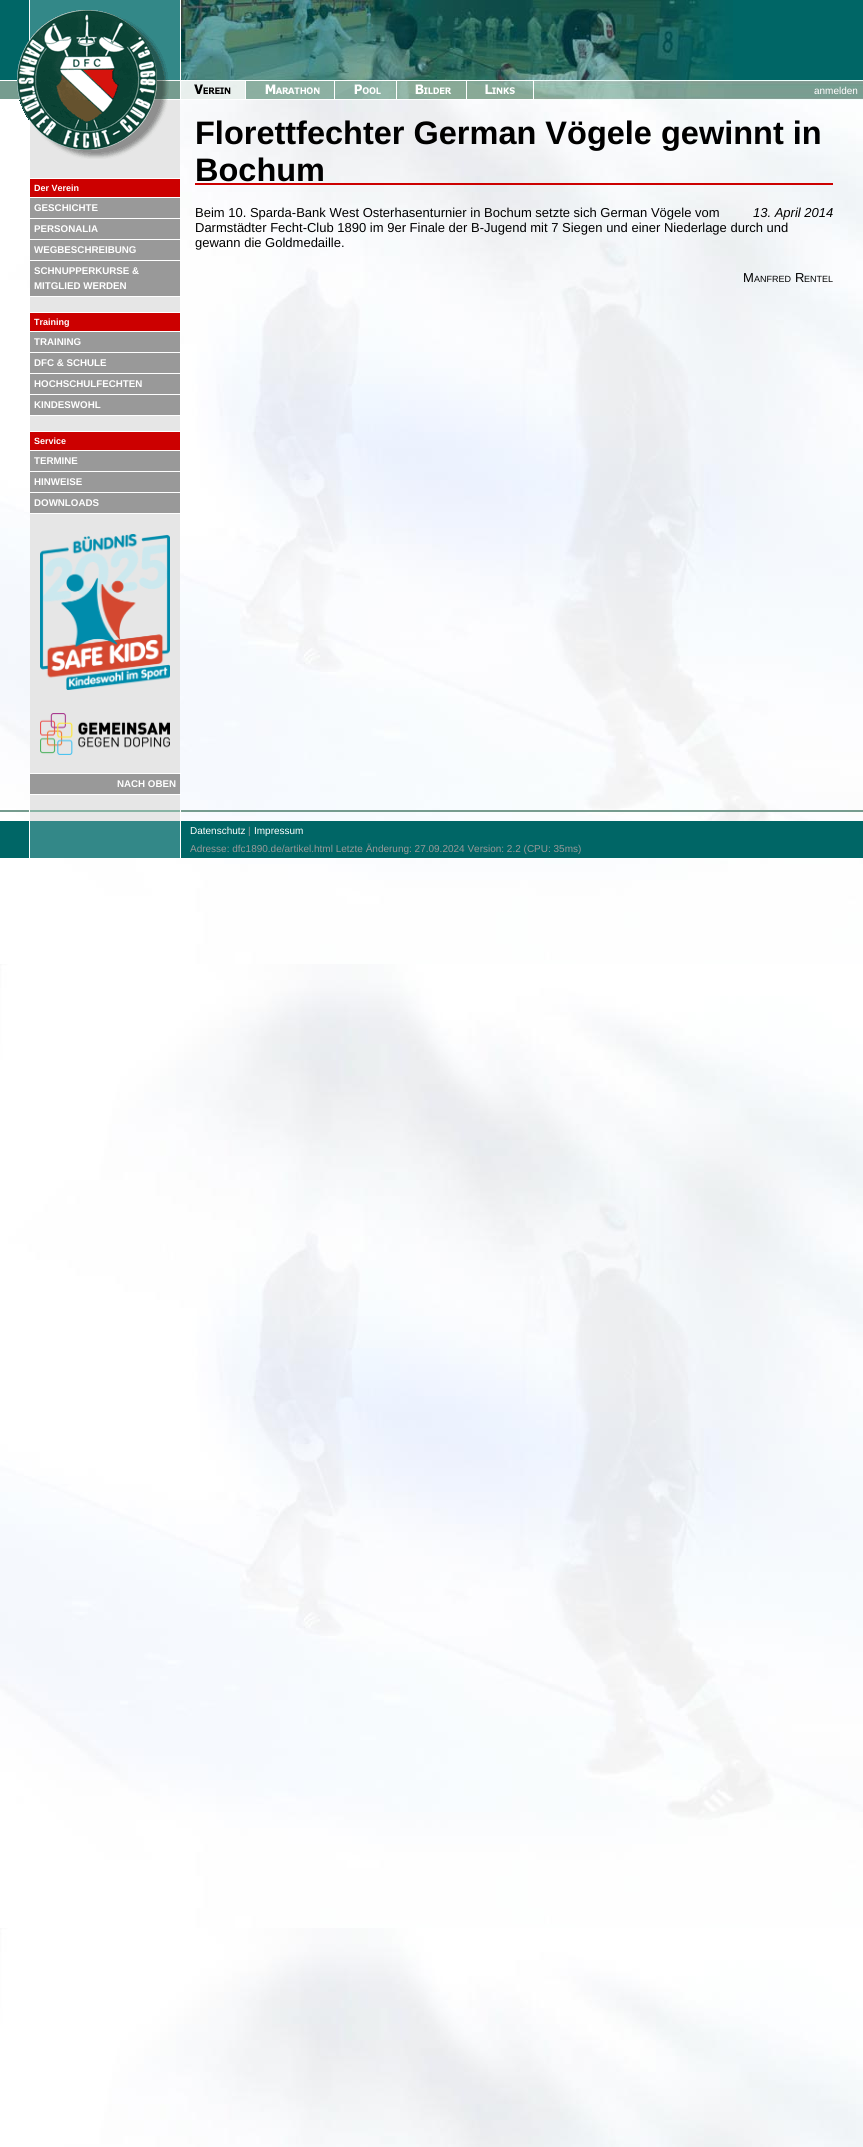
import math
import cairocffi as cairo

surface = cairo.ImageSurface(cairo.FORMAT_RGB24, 863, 2147)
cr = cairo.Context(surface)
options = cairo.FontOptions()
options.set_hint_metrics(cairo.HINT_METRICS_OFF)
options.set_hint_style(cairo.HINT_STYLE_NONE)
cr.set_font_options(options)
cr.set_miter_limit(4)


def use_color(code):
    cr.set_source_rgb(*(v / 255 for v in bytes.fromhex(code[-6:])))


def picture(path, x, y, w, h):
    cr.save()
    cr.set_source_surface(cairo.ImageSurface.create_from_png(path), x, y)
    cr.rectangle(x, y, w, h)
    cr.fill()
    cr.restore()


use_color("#ffffff")
cr.paint()
picture("img1.png", 0, 100, 863, 2047)
use_color("#006666")
cr.rectangle(0, 0, 17, 80)
cr.fill()
picture("img2.png", 17, 0, 13, 80)
use_color("#338888")
cr.rectangle(30, 0, 150, 80)
cr.fill()
picture("img3.png", 30, 10, 139, 70)
use_color("#006666")
cr.rectangle(733, 0, 130, 80)
cr.fill()
picture("img4.png", 181, 0, 552, 80)
picture("img5.png", 0, 80, 30, 20)
picture("img6.png", 30, 80, 150, 20)
picture("img7.png", 534, 80, 329, 20)
picture("img8.png", 180, 80, 66, 20)
picture("img9.png", 246, 80, 89, 20)
picture("img10.png", 335, 80, 62, 20)
picture("img11.png", 397, 80, 70, 20)
picture("img12.png", 467, 80, 67, 20)
cr.select_font_face("Liberation Sans")
cr.set_font_size(10)
use_color("#ffffff")
cr.move_to(814, 94)
cr.show_text("anmelden")
picture("img13.png", 19, 100, 11, 21)
use_color("#e6e6e6")
cr.rectangle(30, 100, 150, 710)
cr.fill()
picture("img14.png", 30, 100, 138, 59)
use_color("#cc0000")
cr.rectangle(30, 179, 150, 18)
cr.fill()
use_color("#ffffff")
cr.rectangle(30, 178, 151, 1)
cr.fill()
cr.select_font_face("Liberation Sans", cairo.FONT_SLANT_NORMAL, cairo.FONT_WEIGHT_BOLD)
cr.set_font_size(9)
cr.move_to(34, 191)
cr.show_text("Der Verein")
use_color("#999999")
cr.rectangle(30, 198, 150, 20)
cr.fill()
use_color("#ffffff")
cr.rectangle(30, 197, 151, 1)
cr.fill()
cr.set_font_size(9.75)
cr.move_to(34, 211)
cr.show_text("GESCHICHTE")
use_color("#999999")
cr.rectangle(30, 219, 150, 20)
cr.fill()
use_color("#ffffff")
cr.rectangle(30, 218, 151, 1)
cr.fill()
cr.move_to(34, 232)
cr.show_text("PERSONALIA")
use_color("#999999")
cr.rectangle(30, 240, 150, 20)
cr.fill()
use_color("#ffffff")
cr.rectangle(30, 239, 151, 1)
cr.fill()
cr.move_to(34, 253)
cr.show_text("WEGBESCHREIBUNG")
use_color("#999999")
cr.rectangle(30, 261, 150, 35)
cr.fill()
use_color("#ffffff")
cr.rectangle(30, 260, 151, 1)
cr.fill()
cr.rectangle(30, 296, 151, 1)
cr.fill()
cr.move_to(34, 274)
cr.show_text("SCHNUPPERKURSE &")
cr.move_to(34, 289)
cr.show_text("MITGLIED WERDEN")
use_color("#cc0000")
cr.rectangle(30, 313, 150, 18)
cr.fill()
use_color("#ffffff")
cr.rectangle(30, 312, 151, 1)
cr.fill()
cr.set_font_size(9)
cr.move_to(34, 325)
cr.show_text("Training")
use_color("#999999")
cr.rectangle(30, 332, 150, 20)
cr.fill()
use_color("#ffffff")
cr.rectangle(30, 331, 151, 1)
cr.fill()
cr.set_font_size(9.75)
cr.move_to(34, 345)
cr.show_text("TRAINING")
use_color("#999999")
cr.rectangle(30, 353, 150, 20)
cr.fill()
use_color("#ffffff")
cr.rectangle(30, 352, 151, 1)
cr.fill()
cr.move_to(34, 366)
cr.show_text("DFC & SCHULE")
use_color("#999999")
cr.rectangle(30, 374, 150, 20)
cr.fill()
use_color("#ffffff")
cr.rectangle(30, 373, 151, 1)
cr.fill()
cr.move_to(34, 387)
cr.show_text("HOCHSCHULFECHTEN")
use_color("#999999")
cr.rectangle(30, 395, 150, 20)
cr.fill()
use_color("#ffffff")
cr.rectangle(30, 394, 151, 1)
cr.fill()
cr.rectangle(30, 415, 151, 1)
cr.fill()
cr.move_to(34, 408)
cr.show_text("KINDESWOHL")
use_color("#cc0000")
cr.rectangle(30, 432, 150, 18)
cr.fill()
use_color("#ffffff")
cr.rectangle(30, 431, 151, 1)
cr.fill()
cr.set_font_size(9)
cr.move_to(34, 444)
cr.show_text("Service")
use_color("#999999")
cr.rectangle(30, 451, 150, 20)
cr.fill()
use_color("#ffffff")
cr.rectangle(30, 450, 151, 1)
cr.fill()
cr.set_font_size(9.75)
cr.move_to(34, 464)
cr.show_text("TERMINE")
use_color("#999999")
cr.rectangle(30, 472, 150, 20)
cr.fill()
use_color("#ffffff")
cr.rectangle(30, 471, 151, 1)
cr.fill()
cr.move_to(34, 485)
cr.show_text("HINWEISE")
use_color("#999999")
cr.rectangle(30, 493, 150, 20)
cr.fill()
use_color("#ffffff")
cr.rectangle(30, 492, 151, 1)
cr.fill()
cr.rectangle(30, 513, 151, 1)
cr.fill()
cr.move_to(34, 506)
cr.show_text("DOWNLOADS")
picture("img15.png", 40, 534, 130, 156)
picture("img16.png", 40, 713, 130, 42)
cr.set_font_size(32.5)
use_color("#000000")
cr.move_to(195, 144)
cr.show_text("Florettfechter German Vögele gewinnt in")
cr.move_to(195, 181)
cr.show_text("Bochum")
use_color("#cc0000")
cr.rectangle(195, 183, 638, 2)
cr.fill()
cr.select_font_face("Liberation Sans")
cr.set_font_size(13)
use_color("#000000")
cr.move_to(195, 217)
cr.show_text("Beim 10. Sparda-Bank West Osterhasenturnier in Bochum setzte sich German Vögele vom")
cr.select_font_face("Liberation Sans", cairo.FONT_SLANT_ITALIC)
cr.move_to(753, 217)
cr.show_text("13. April 2014")
cr.select_font_face("Liberation Sans")
cr.move_to(195, 232)
cr.show_text("Darmstädter Fecht-Club 1890 im 9er Finale der B-Jugend mit 7 Siegen und einer Niederlage durch und")
cr.move_to(195, 247)
cr.show_text("gewann die Goldmedaille.")
cr.move_to(743, 282)
cr.show_text("M")
cr.set_font_size(9)
cr.move_to(754, 282)
cr.show_text("ANFRED")
cr.set_font_size(13)
cr.move_to(795, 282)
cr.show_text("R")
cr.set_font_size(9)
cr.move_to(804, 282)
cr.show_text("ENTEL")
use_color("#999999")
cr.rectangle(30, 774, 150, 20)
cr.fill()
use_color("#ffffff")
cr.rectangle(30, 773, 151, 1)
cr.fill()
cr.rectangle(30, 794, 151, 1)
cr.fill()
cr.select_font_face("Liberation Sans", cairo.FONT_SLANT_NORMAL, cairo.FONT_WEIGHT_BOLD)
cr.set_font_size(9.75)
cr.move_to(117, 787)
cr.show_text("NACH OBEN")
use_color("#769c8f")
cr.rectangle(0, 810, 29, 2)
cr.fill()
picture("img17.png", 30, 810, 150, 11)
picture("img18.png", 180, 810, 683, 11)
use_color("#006666")
cr.rectangle(0, 821, 29, 37)
cr.fill()
use_color("#338888")
cr.rectangle(30, 821, 150, 37)
cr.fill()
use_color("#006666")
cr.rectangle(181, 821, 682, 37)
cr.fill()
use_color("#ffffff")
cr.rectangle(180, 821, 1, 19)
cr.fill()
cr.select_font_face("Liberation Sans")
cr.set_font_size(10)
cr.move_to(190, 834)
cr.show_text("Datenschutz")
use_color("#999999")
cr.move_to(248, 834)
cr.show_text("|")
use_color("#ffffff")
cr.move_to(254, 834)
cr.show_text("Impressum")
use_color("#999999")
cr.move_to(190, 852)
cr.show_text("Adresse: dfc1890.de/artikel.html Letzte Änderung: 27.09.2024 Version: 2.2 (CPU: 35ms)")
surface.write_to_png("result.png")
